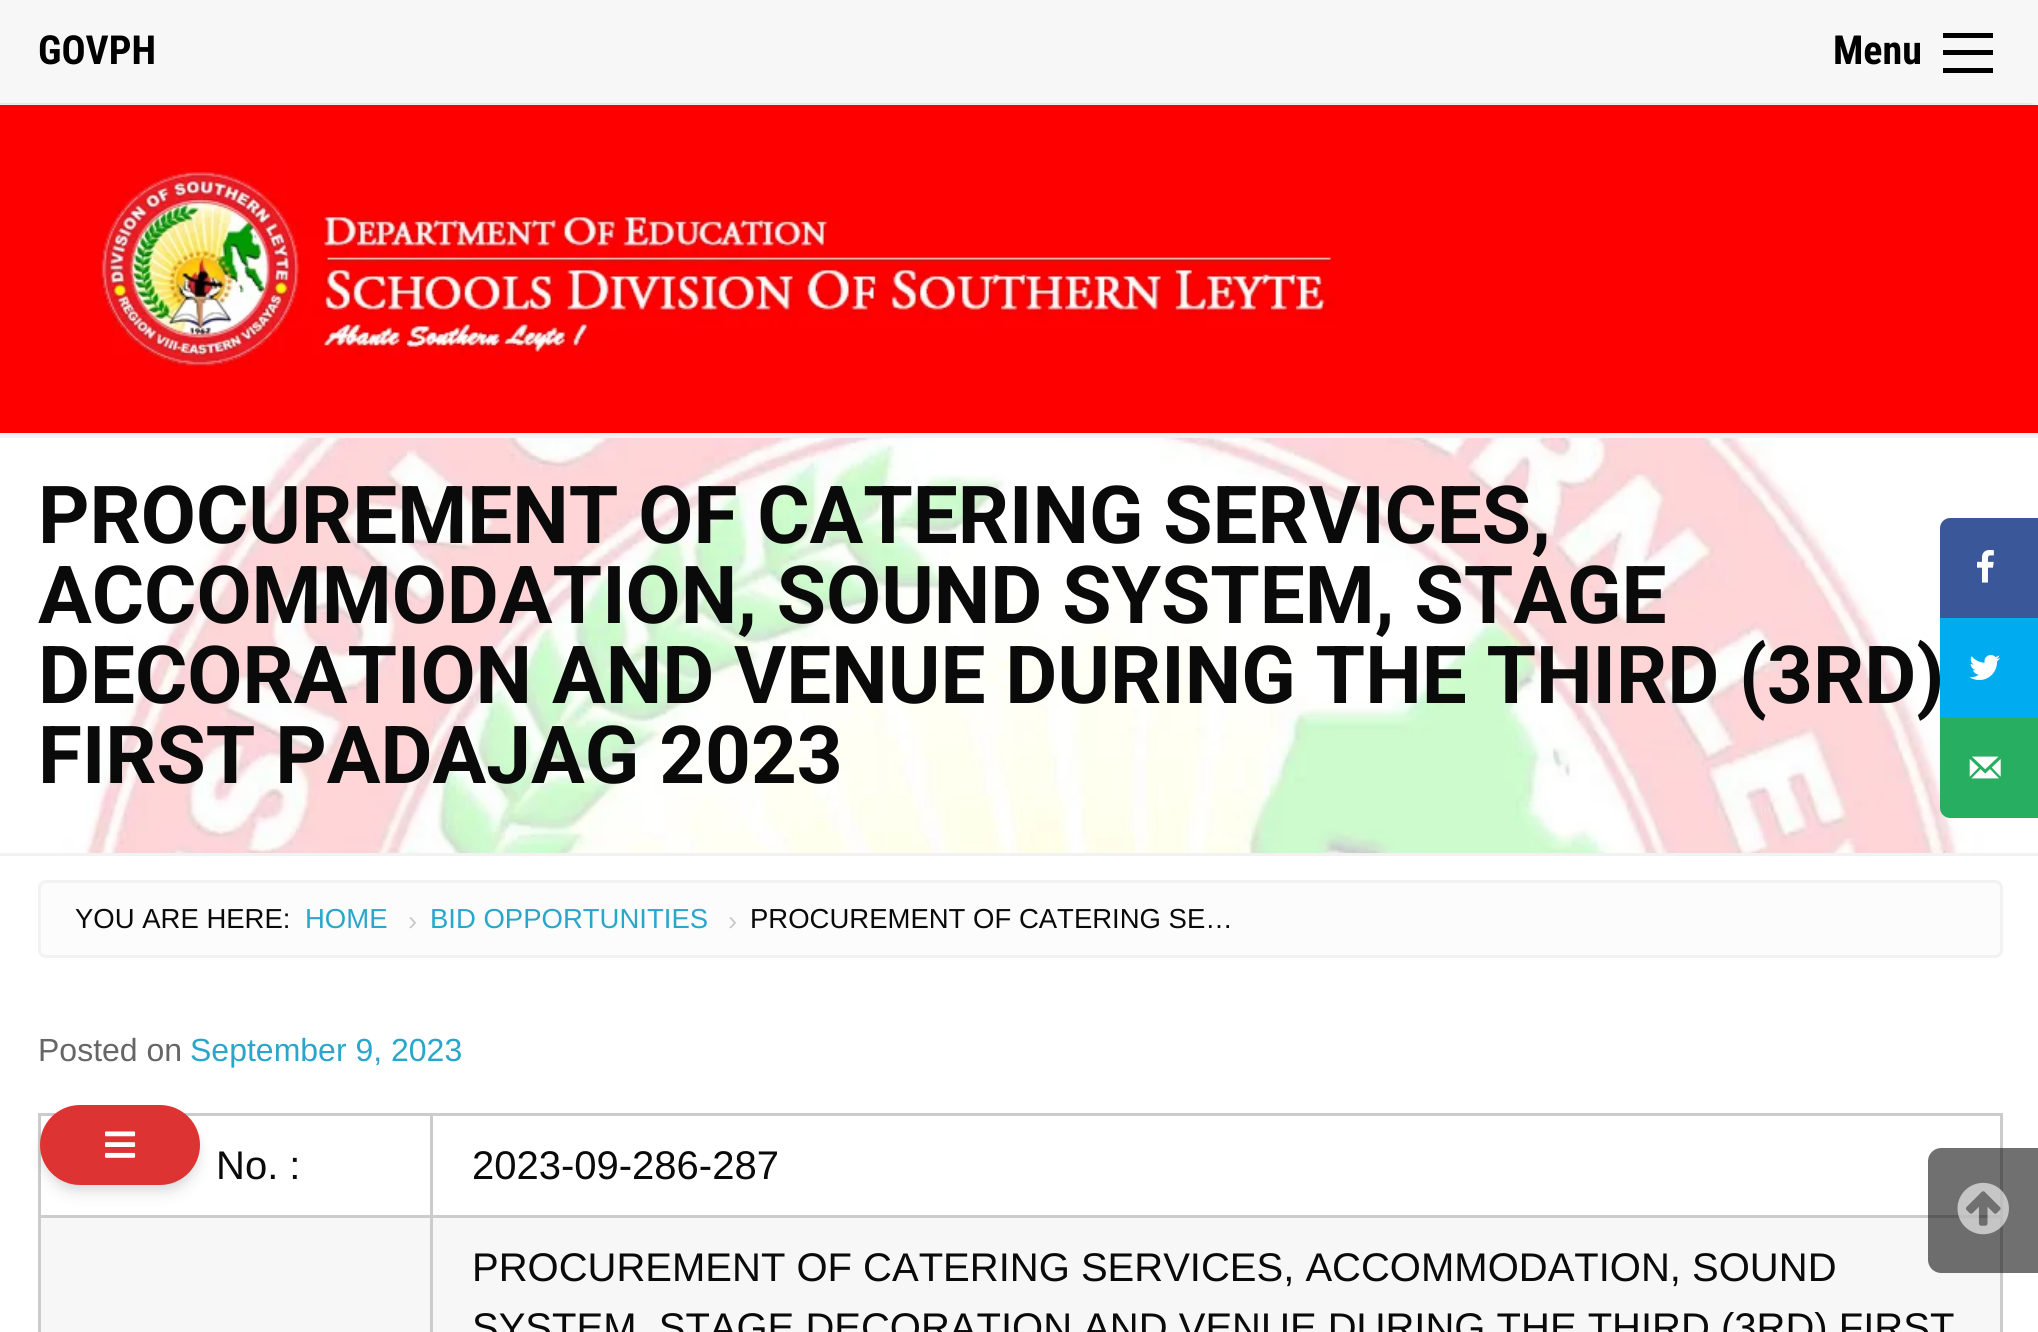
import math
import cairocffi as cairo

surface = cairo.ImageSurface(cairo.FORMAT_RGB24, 2038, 1332)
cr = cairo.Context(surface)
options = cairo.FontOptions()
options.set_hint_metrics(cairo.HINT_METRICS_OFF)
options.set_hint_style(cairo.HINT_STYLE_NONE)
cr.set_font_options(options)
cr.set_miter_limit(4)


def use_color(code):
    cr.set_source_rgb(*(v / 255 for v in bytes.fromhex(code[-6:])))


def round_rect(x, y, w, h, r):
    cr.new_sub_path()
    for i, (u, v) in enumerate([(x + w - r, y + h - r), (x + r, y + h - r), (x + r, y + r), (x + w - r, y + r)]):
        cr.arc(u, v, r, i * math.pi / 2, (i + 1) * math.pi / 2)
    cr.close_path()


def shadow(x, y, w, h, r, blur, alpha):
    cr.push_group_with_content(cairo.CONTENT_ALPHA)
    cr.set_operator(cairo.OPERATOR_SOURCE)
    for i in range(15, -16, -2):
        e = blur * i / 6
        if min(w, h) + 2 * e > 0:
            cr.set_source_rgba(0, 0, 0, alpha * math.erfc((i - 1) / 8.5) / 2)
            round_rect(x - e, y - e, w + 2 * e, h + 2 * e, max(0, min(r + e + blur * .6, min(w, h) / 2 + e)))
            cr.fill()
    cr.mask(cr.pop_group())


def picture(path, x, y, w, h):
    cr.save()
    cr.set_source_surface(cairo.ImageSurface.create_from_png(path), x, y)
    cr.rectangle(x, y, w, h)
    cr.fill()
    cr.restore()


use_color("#ffffff")
cr.paint()
use_color("#000000")
shadow(-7, 0, 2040, 103, 0, 5, 0.2)
use_color("#f7f7f7")
cr.rectangle(0, 0, 2038, 103)
cr.fill()
cr.select_font_face("Roboto Condensed", cairo.FONT_SLANT_NORMAL, cairo.FONT_WEIGHT_BOLD)
cr.set_font_size(40)
use_color("#000000")
cr.move_to(38, 64)
cr.show_text("GOVPH")
cr.move_to(1833, 64)
cr.show_text("Menu")
cr.rectangle(1943, 68, 50, 5)
cr.fill()
cr.rectangle(1943, 50, 50, 5)
cr.fill()
cr.rectangle(1943, 33, 50, 5)
cr.fill()
use_color("#fe0000")
cr.rectangle(0, 105, 2038, 328)
cr.fill()
use_color("#f2f2f2")
cr.rectangle(0, 433, 2038, 5)
cr.fill()
picture("img1.png", 99, 167, 1236, 201)
picture("img2.png", 0, 438, 2038, 415)
cr.rectangle(0, 853, 2038, 3)
cr.fill()
cr.select_font_face("Roboto", cairo.FONT_SLANT_NORMAL, cairo.FONT_WEIGHT_BOLD)
cr.set_font_size(80)
use_color("#0a0a0a")
cr.move_to(38, 543)
cr.show_text("PROCUREMENT OF CATERING SERVICES,")
cr.move_to(38, 623)
cr.show_text("ACCOMMODATION, SOUND SYSTEM, STAGE")
cr.move_to(38, 703)
cr.show_text("DECORATION AND VENUE DURING THE THIRD (3RD)")
cr.move_to(38, 783)
cr.show_text("FIRST PADAJAG 2023")
use_color("#fcfcfc")
round_rect(39.5, 881.5, 1962, 75, 6.5)
cr.fill_preserve()
use_color("#f2f2f2")
cr.set_line_width(3)
cr.stroke()
cr.select_font_face("Liberation Sans")
cr.set_font_size(27.5)
use_color("#0a0a0a")
cr.move_to(75, 928)
cr.show_text("YOU ARE HERE:")
use_color("#2ba6cb")
cr.move_to(305, 928)
cr.show_text("HOME")
use_color("#cacaca")
cr.move_to(408, 930)
cr.show_text("›")
use_color("#2ba6cb")
cr.move_to(430, 928)
cr.show_text("BID OPPORTUNITIES")
use_color("#cacaca")
cr.move_to(728, 930)
cr.show_text("›")
use_color("#0a0a0a")
cr.move_to(750, 928)
cr.show_text("PROCUREMENT OF CATERING SE…")
cr.set_font_size(32)
use_color("#666666")
cr.move_to(38, 1061)
cr.show_text("Posted on")
use_color("#2ba6cb")
cr.move_to(190, 1061)
cr.show_text("September 9, 2023")
use_color("#cccccc")
cr.rectangle(430, 1113, 1573, 3)
cr.fill()
cr.rectangle(430, 1215, 1573, 3)
cr.fill()
cr.rectangle(430, 1215, 3, 117)
cr.fill()
cr.rectangle(38, 1215, 395, 3)
cr.fill()
cr.rectangle(430, 1113, 3, 105)
cr.fill()
cr.rectangle(38, 1113, 395, 3)
cr.fill()
cr.rectangle(38, 1215, 3, 117)
cr.fill()
cr.rectangle(38, 1113, 3, 105)
cr.fill()
cr.set_font_size(40)
use_color("#0a0a0a")
cr.move_to(216, 1179)
cr.show_text("No. :")
use_color("#cccccc")
cr.rectangle(2000, 1215, 3, 117)
cr.fill()
cr.rectangle(2000, 1113, 3, 105)
cr.fill()
use_color("#0a0a0a")
cr.move_to(472, 1179)
cr.show_text("2023-09-286-287")
use_color("#f7f7f7")
cr.rectangle(41, 1218, 389, 114)
cr.fill()
cr.rectangle(433, 1218, 1567, 114)
cr.fill()
use_color("#0a0a0a")
cr.move_to(472, 1281)
cr.show_text("PROCUREMENT OF CATERING SERVICES, ACCOMMODATION, SOUND")
cr.move_to(472, 1341)
cr.show_text("SYSTEM, STAGE DECORATION AND VENUE DURING THE THIRD (3RD) FIRST")
use_color("#3a579a")
cr.new_path()
cr.move_to(1950, 520.5)
cr.line_to(2037.5, 520.5)
cr.line_to(2037.5, 615.5)
cr.line_to(1942.5, 615.5)
cr.line_to(1942.5, 528)
cr.curve_to(1942.5, 524, 1946, 520.5, 1950, 520.5)
cr.close_path()
cr.fill_preserve()
cr.set_line_width(5)
cr.stroke()
picture("img3.png", 1977, 550, 17, 33)
use_color("#00abf0")
cr.rectangle(1940, 618, 98, 100)
cr.fill()
picture("img4.png", 1969, 655, 32, 25)
use_color("#27ae60")
cr.new_path()
cr.move_to(1942.5, 720.5)
cr.line_to(2037.5, 720.5)
cr.line_to(2037.5, 815.5)
cr.line_to(1950, 815.5)
cr.curve_to(1946, 815.5, 1942.5, 812, 1942.5, 808)
cr.close_path()
cr.fill_preserve()
cr.stroke()
picture("img5.png", 1969, 756, 32, 23)
use_color("#000000")
shadow(43, 1113, 155, 75, 37.5, 5, 0.06)
shadow(43, 1118, 155, 75, 37.5, 7.5, 0.1)
use_color("#dd3333")
round_rect(40, 1105, 160, 80, 40)
cr.fill()
picture("img6.png", 105, 1131, 31, 27)
cr.set_source_rgba(0.067, 0.067, 0.067, 0.6)
cr.new_path()
cr.move_to(1941, 1148)
cr.line_to(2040, 1148)
cr.line_to(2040, 1273)
cr.line_to(1941, 1273)
cr.curve_to(1934, 1273, 1928, 1267, 1928, 1260)
cr.line_to(1928, 1161)
cr.curve_to(1928, 1154, 1934, 1148, 1941, 1148)
cr.close_path()
cr.fill()
picture("img7.png", 1957, 1182, 52, 53)
surface.write_to_png("result.png")
